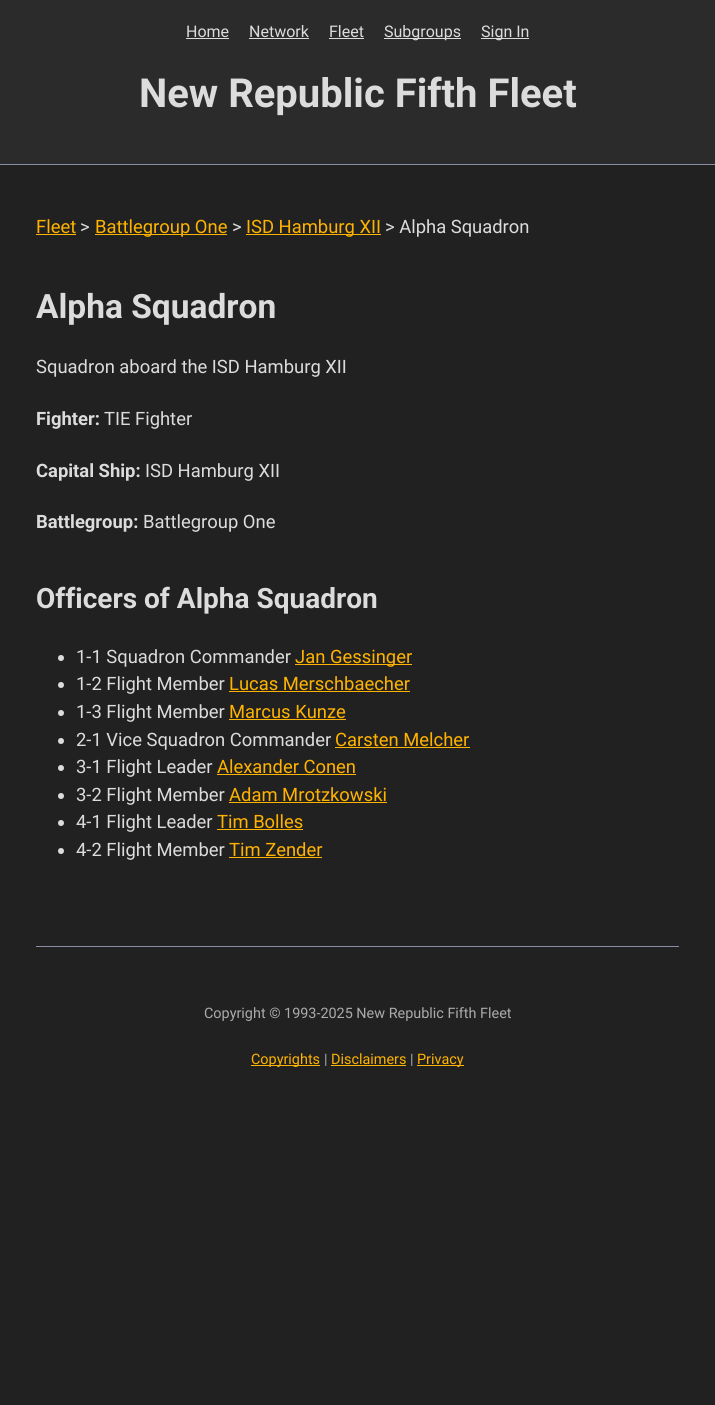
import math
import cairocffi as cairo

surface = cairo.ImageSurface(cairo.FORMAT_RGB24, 715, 1405)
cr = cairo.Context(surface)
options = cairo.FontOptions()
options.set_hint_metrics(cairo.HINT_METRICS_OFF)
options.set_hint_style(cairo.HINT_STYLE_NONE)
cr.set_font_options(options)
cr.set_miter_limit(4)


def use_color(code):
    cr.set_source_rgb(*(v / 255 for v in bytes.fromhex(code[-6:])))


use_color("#212121")
cr.paint()
use_color("#2b2b2b")
cr.rectangle(0, 0, 715, 164)
cr.fill()
use_color("#898ea4")
cr.rectangle(0, 164, 715, 1)
cr.fill()
cr.select_font_face("Roboto")
cr.set_font_size(16)
use_color("#dcdcdc")
cr.move_to(186, 37)
cr.show_text("Home")
cr.rectangle(186, 38, 43, 1)
cr.fill()
cr.move_to(249, 37)
cr.show_text("Network")
cr.rectangle(249, 38, 60, 1)
cr.fill()
cr.move_to(329, 37)
cr.show_text("Fleet")
cr.rectangle(329, 38, 35, 1)
cr.fill()
cr.rectangle(384, 38, 77, 1)
cr.fill()
cr.move_to(384, 37)
cr.show_text("Subgroups")
cr.rectangle(481, 38, 48, 1)
cr.fill()
cr.move_to(481, 37)
cr.show_text("Sign In")
cr.select_font_face("Roboto", cairo.FONT_SLANT_NORMAL, cairo.FONT_WEIGHT_BOLD)
cr.set_font_size(40)
cr.move_to(139, 107)
cr.show_text("New Republic Fifth Fleet")
cr.select_font_face("Roboto")
cr.set_font_size(18.4)
use_color("#ffb300")
cr.move_to(36, 233)
cr.show_text("Fleet")
cr.rectangle(36, 234, 40, 1)
cr.fill()
use_color("#dcdcdc")
cr.move_to(80, 233)
cr.show_text(">")
use_color("#ffb300")
cr.rectangle(95, 234, 132, 1)
cr.fill()
cr.move_to(95, 233)
cr.show_text("Battlegroup One")
use_color("#dcdcdc")
cr.move_to(232, 233)
cr.show_text(">")
use_color("#ffb300")
cr.rectangle(246, 234, 135, 1)
cr.fill()
cr.move_to(246, 233)
cr.show_text("ISD Hamburg XII")
use_color("#dcdcdc")
cr.move_to(385, 233)
cr.show_text("> Alpha Squadron")
cr.select_font_face("Roboto", cairo.FONT_SLANT_NORMAL, cairo.FONT_WEIGHT_BOLD)
cr.set_font_size(33.5)
cr.move_to(36, 318)
cr.show_text("Alpha Squadron")
cr.select_font_face("Roboto")
cr.set_font_size(18.4)
cr.move_to(36, 373)
cr.show_text("Squadron aboard the ISD Hamburg XII")
cr.select_font_face("Roboto", cairo.FONT_SLANT_NORMAL, cairo.FONT_WEIGHT_BOLD)
cr.move_to(36, 425)
cr.show_text("Fighter:")
cr.select_font_face("Roboto")
cr.move_to(104, 425)
cr.show_text("TIE Fighter")
cr.select_font_face("Roboto", cairo.FONT_SLANT_NORMAL, cairo.FONT_WEIGHT_BOLD)
cr.move_to(36, 477)
cr.show_text("Capital Ship:")
cr.select_font_face("Roboto")
cr.move_to(145, 477)
cr.show_text("ISD Hamburg XII")
cr.select_font_face("Roboto", cairo.FONT_SLANT_NORMAL, cairo.FONT_WEIGHT_BOLD)
cr.move_to(36, 528)
cr.show_text("Battlegroup:")
cr.select_font_face("Roboto")
cr.move_to(143, 528)
cr.show_text("Battlegroup One")
cr.select_font_face("Roboto", cairo.FONT_SLANT_NORMAL, cairo.FONT_WEIGHT_BOLD)
cr.set_font_size(28)
cr.move_to(36, 608)
cr.show_text("Officers of Alpha Squadron")
cr.new_path()
cr.arc(61, 658, 3, 0, 2 * math.pi)
cr.fill()
cr.select_font_face("Roboto")
cr.set_font_size(18.4)
cr.move_to(76, 663)
cr.show_text("1-1 Squadron Commander")
use_color("#ffb300")
cr.rectangle(295, 664, 117, 1)
cr.fill()
cr.move_to(295, 663)
cr.show_text("Jan Gessinger")
use_color("#dcdcdc")
cr.new_path()
cr.arc(61, 685, 3, 0, 2 * math.pi)
cr.fill()
cr.move_to(76, 690)
cr.show_text("1-2 Flight Member")
use_color("#ffb300")
cr.move_to(229, 690)
cr.show_text("Lucas Merschbaecher")
cr.rectangle(229, 691, 181, 1)
cr.fill()
use_color("#dcdcdc")
cr.arc(61, 713, 3, 0, 2 * math.pi)
cr.fill()
cr.move_to(76, 718)
cr.show_text("1-3 Flight Member")
use_color("#ffb300")
cr.move_to(229, 718)
cr.show_text("Marcus Kunze")
cr.rectangle(229, 719, 117, 1)
cr.fill()
use_color("#dcdcdc")
cr.arc(61, 741, 3, 0, 2 * math.pi)
cr.fill()
cr.move_to(76, 746)
cr.show_text("2-1 Vice Squadron Commander")
use_color("#ffb300")
cr.move_to(335, 746)
cr.show_text("Carsten Melcher")
cr.rectangle(335, 747, 135, 1)
cr.fill()
use_color("#dcdcdc")
cr.arc(61, 768, 3, 0, 2 * math.pi)
cr.fill()
cr.move_to(76, 773)
cr.show_text("3-1 Flight Leader")
use_color("#ffb300")
cr.move_to(217, 773)
cr.show_text("Alexander Conen")
cr.rectangle(217, 774, 139, 1)
cr.fill()
use_color("#dcdcdc")
cr.arc(61, 796, 3, 0, 2 * math.pi)
cr.fill()
cr.move_to(76, 801)
cr.show_text("3-2 Flight Member")
use_color("#ffb300")
cr.move_to(229, 801)
cr.show_text("Adam Mrotzkowski")
cr.rectangle(229, 802, 158, 1)
cr.fill()
use_color("#dcdcdc")
cr.arc(61, 823, 3, 0, 2 * math.pi)
cr.fill()
cr.move_to(76, 828)
cr.show_text("4-1 Flight Leader")
use_color("#ffb300")
cr.move_to(217, 828)
cr.show_text("Tim Bolles")
cr.rectangle(217, 829, 86, 1)
cr.fill()
use_color("#dcdcdc")
cr.arc(61, 851, 3, 0, 2 * math.pi)
cr.fill()
cr.move_to(76, 856)
cr.show_text("4-2 Flight Member")
use_color("#ffb300")
cr.move_to(229, 856)
cr.show_text("Tim Zender")
cr.rectangle(229, 857, 93, 1)
cr.fill()
use_color("#898ea4")
cr.rectangle(36, 946, 643, 1)
cr.fill()
cr.set_font_size(14.4)
use_color("#ababab")
cr.move_to(204, 1018)
cr.show_text("Copyright © 1993-2025 New Republic Fifth Fleet")
use_color("#ffb300")
cr.rectangle(251, 1065, 69, 1)
cr.fill()
cr.move_to(251, 1064)
cr.show_text("Copyrights")
use_color("#ababab")
cr.move_to(324, 1064)
cr.show_text("|")
use_color("#ffb300")
cr.move_to(331, 1064)
cr.show_text("Disclaimers")
cr.rectangle(331, 1065, 75, 1)
cr.fill()
use_color("#ababab")
cr.move_to(410, 1064)
cr.show_text("|")
use_color("#ffb300")
cr.rectangle(417, 1065, 47, 1)
cr.fill()
cr.move_to(417, 1064)
cr.show_text("Privacy")
surface.write_to_png("result.png")
